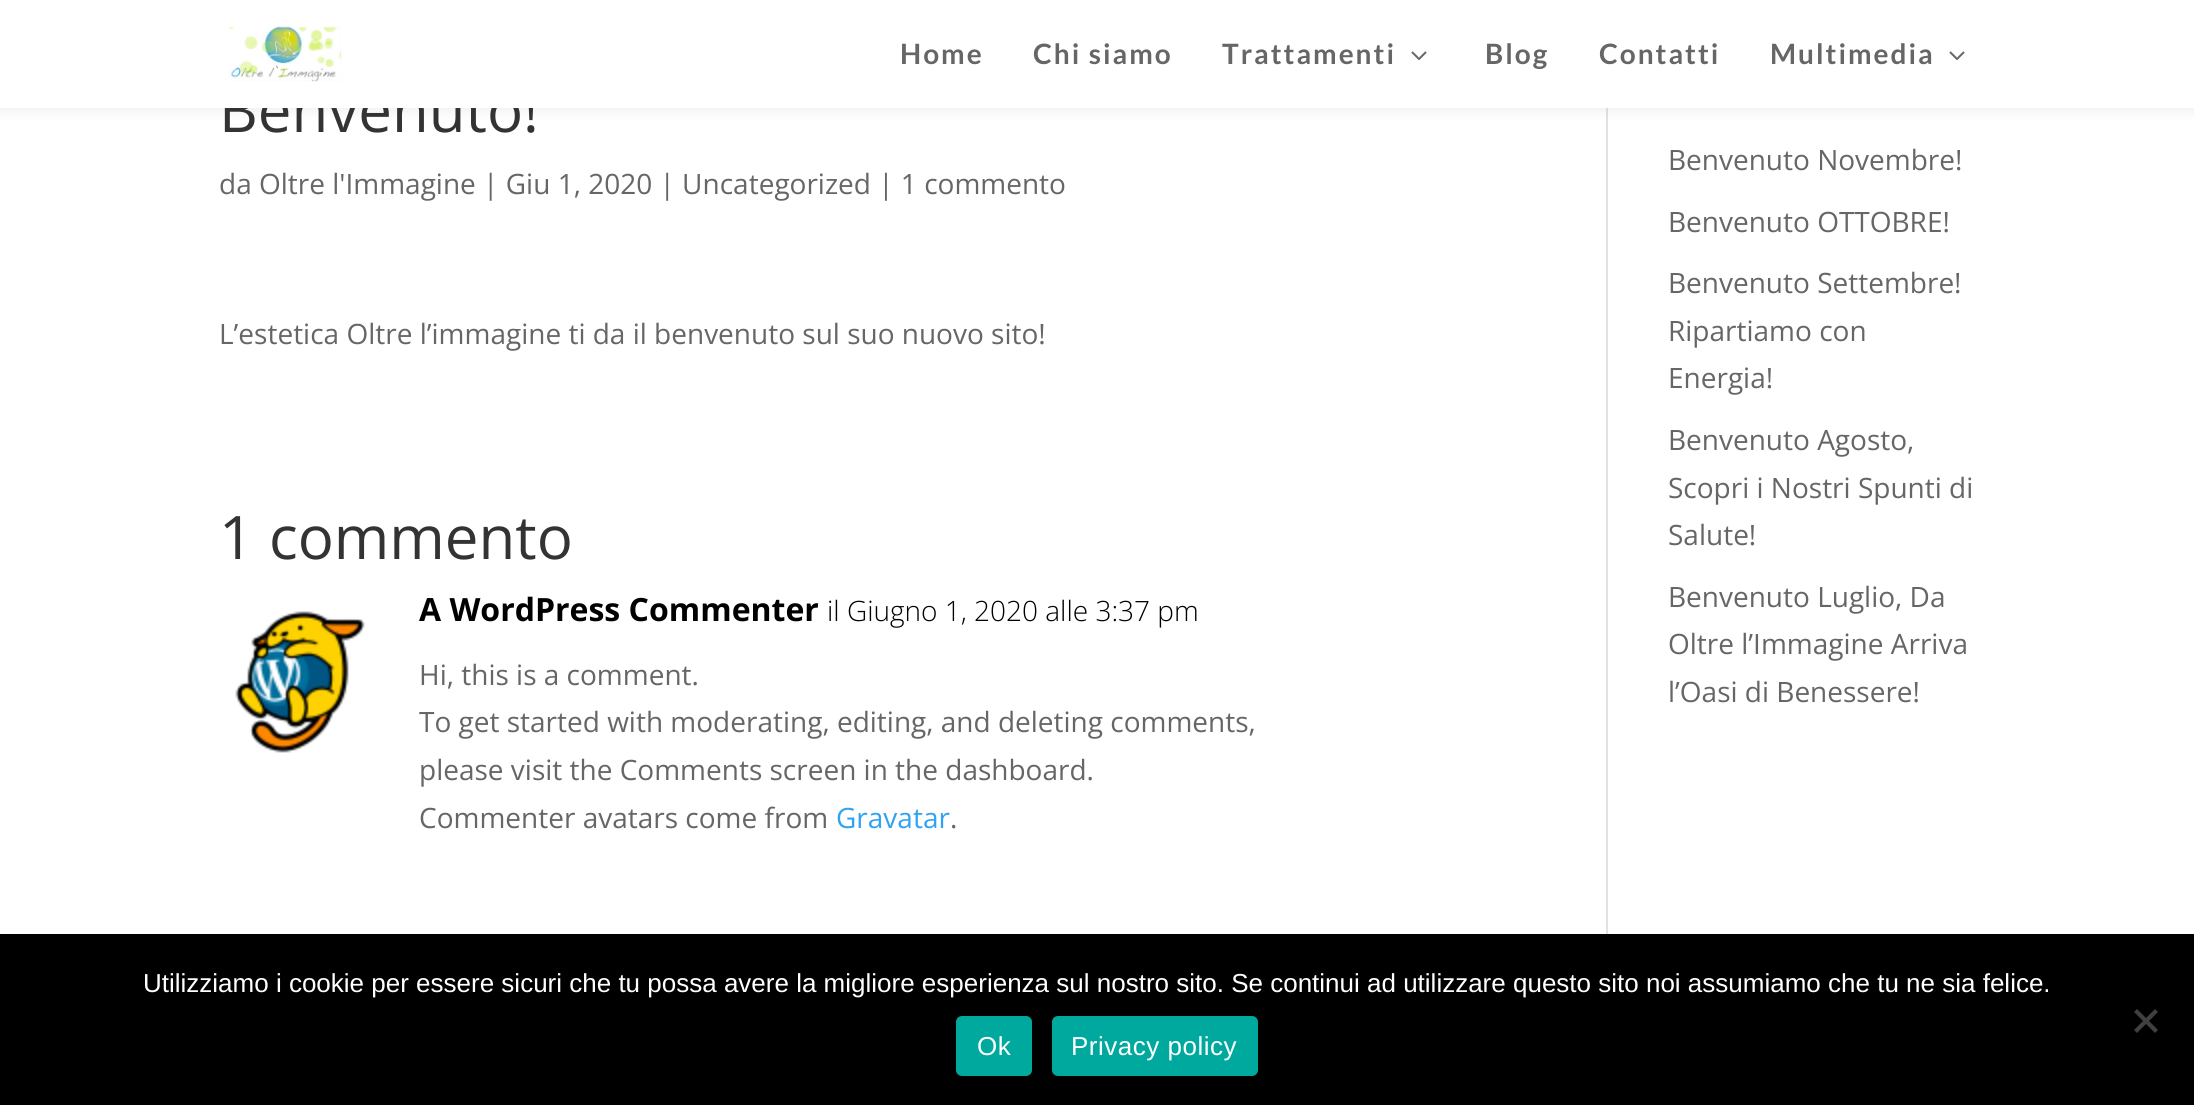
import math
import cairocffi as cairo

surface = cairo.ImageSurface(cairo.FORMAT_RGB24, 2194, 1105)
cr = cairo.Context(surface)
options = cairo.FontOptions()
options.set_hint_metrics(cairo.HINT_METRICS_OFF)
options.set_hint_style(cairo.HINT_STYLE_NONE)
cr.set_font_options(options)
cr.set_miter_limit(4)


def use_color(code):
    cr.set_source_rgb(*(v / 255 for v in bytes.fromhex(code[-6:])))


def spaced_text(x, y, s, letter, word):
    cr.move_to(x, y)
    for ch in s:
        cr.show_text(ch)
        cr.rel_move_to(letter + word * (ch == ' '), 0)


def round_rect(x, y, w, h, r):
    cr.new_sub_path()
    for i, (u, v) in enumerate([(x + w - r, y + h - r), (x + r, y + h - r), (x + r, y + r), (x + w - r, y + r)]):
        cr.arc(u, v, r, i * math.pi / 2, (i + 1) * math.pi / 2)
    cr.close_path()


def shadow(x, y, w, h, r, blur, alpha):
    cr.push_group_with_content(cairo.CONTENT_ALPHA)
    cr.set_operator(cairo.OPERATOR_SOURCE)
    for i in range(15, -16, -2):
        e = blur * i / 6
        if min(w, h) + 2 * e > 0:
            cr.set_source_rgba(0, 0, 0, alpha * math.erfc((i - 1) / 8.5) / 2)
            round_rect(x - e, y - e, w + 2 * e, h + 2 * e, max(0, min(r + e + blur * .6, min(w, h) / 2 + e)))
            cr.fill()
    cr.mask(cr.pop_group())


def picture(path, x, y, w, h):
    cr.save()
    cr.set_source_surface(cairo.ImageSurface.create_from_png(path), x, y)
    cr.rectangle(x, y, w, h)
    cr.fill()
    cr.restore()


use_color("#ffffff")
cr.paint()
use_color("#e2e2e2")
cr.rectangle(1606, 108, 2, 826)
cr.fill()
use_color("#000000")
shadow(0, 0, 2194, 108, 0, 7, 0.1)
cr.select_font_face("Open Sans")
cr.set_font_size(60)
use_color("#333333")
cr.move_to(219, 132)
cr.show_text("Benvenuto!")
use_color("#ffffff")
cr.rectangle(0, 0, 2194, 108)
cr.fill()
picture("img1.png", 228, 26, 114, 56)
cr.select_font_face("Lato", cairo.FONT_SLANT_NORMAL, cairo.FONT_WEIGHT_BOLD)
cr.set_font_size(28)
use_color("#666666")
spaced_text(900, 64, "Home", 2, 0)
spaced_text(1033, 64, "Chi siamo", 2, 0)
spaced_text(1222, 64, "Trattamenti", 2, 0)
picture("img2.png", 1411, 51, 16, 9)
spaced_text(1485, 64, "Blog", 2, 0)
spaced_text(1599, 64, "Contatti", 2, 0)
spaced_text(1770, 64, "Multimedia", 2, 0)
picture("img2.png", 1949, 51, 16, 9)
cr.select_font_face("Open Sans")
cr.move_to(219, 194)
cr.show_text("da Oltre l'Immagine | Giu 1, 2020 | Uncategorized | 1 commento")
cr.move_to(219, 344)
cr.show_text("L’estetica Oltre l’immagine ti da il benvenuto sul suo nuovo sito!")
cr.set_font_size(60)
use_color("#333333")
cr.move_to(219, 559)
cr.show_text("1 commento")
picture("img3.png", 235, 611, 130, 142)
cr.select_font_face("Open Sans", cairo.FONT_SLANT_NORMAL, cairo.FONT_WEIGHT_BOLD)
cr.set_font_size(32)
use_color("#000000")
cr.move_to(419, 621)
cr.show_text("A WordPress Commenter")
cr.select_font_face("Open Sans Light")
cr.set_font_size(28)
cr.move_to(827, 621)
cr.show_text("il Giugno 1, 2020 alle 3:37 pm")
cr.select_font_face("Open Sans")
use_color("#666666")
cr.move_to(419, 685)
cr.show_text("Hi, this is a comment.")
cr.move_to(419, 732)
cr.show_text("To get started with moderating, editing, and deleting comments,")
cr.move_to(419, 780)
cr.show_text("please visit the Comments screen in the dashboard.")
cr.move_to(419, 828)
cr.show_text("Commenter avatars come from")
use_color("#2ea3f2")
cr.move_to(836, 828)
cr.show_text("Gravatar")
use_color("#666666")
cr.move_to(950, 828)
cr.show_text(".")
cr.move_to(1668, 170)
cr.show_text("Benvenuto Novembre!")
cr.move_to(1668, 232)
cr.show_text("Benvenuto OTTOBRE!")
cr.move_to(1668, 293)
cr.show_text("Benvenuto Settembre!")
cr.move_to(1668, 341)
cr.show_text("Ripartiamo con")
cr.move_to(1668, 388)
cr.show_text("Energia!")
cr.move_to(1668, 450)
cr.show_text("Benvenuto Agosto,")
cr.move_to(1668, 498)
cr.show_text("Scopri i Nostri Spunti di")
cr.move_to(1668, 545)
cr.show_text("Salute!")
cr.move_to(1668, 607)
cr.show_text("Benvenuto Luglio, Da")
cr.move_to(1668, 654)
cr.show_text("Oltre l’Immagine Arriva")
cr.move_to(1668, 702)
cr.show_text("l’Oasi di Benessere!")
use_color("#000000")
cr.rectangle(0, 934, 2194, 171)
cr.fill()
cr.select_font_face("Liberation Sans")
cr.set_font_size(26)
use_color("#ffffff")
cr.move_to(143, 992)
cr.show_text("Utilizziamo i cookie per essere sicuri che tu possa avere la migliore esperienza sul nostro sito. Se continui ad utilizzare questo sito noi assumiamo che tu ne sia felice.")
use_color("#404040")
cr.new_path()
cr.move_to(2155, 1009)
cr.line_to(2158, 1012)
cr.line_to(2137, 1033)
cr.line_to(2134, 1030)
cr.close_path()
cr.fill()
cr.new_path()
cr.move_to(2134, 1012)
cr.line_to(2137, 1009)
cr.line_to(2158, 1030)
cr.line_to(2155, 1033)
cr.close_path()
cr.fill()
use_color("#00a99d")
round_rect(956, 1016, 76, 60, 6)
cr.fill()
use_color("#ffffff")
spaced_text(977, 1055, "Ok", 0.5, 0)
use_color("#00a99d")
round_rect(1052, 1016, 206, 60, 6)
cr.fill()
use_color("#ffffff")
spaced_text(1071, 1055, "Privacy policy", 0.5, 0)
surface.write_to_png("result.png")
